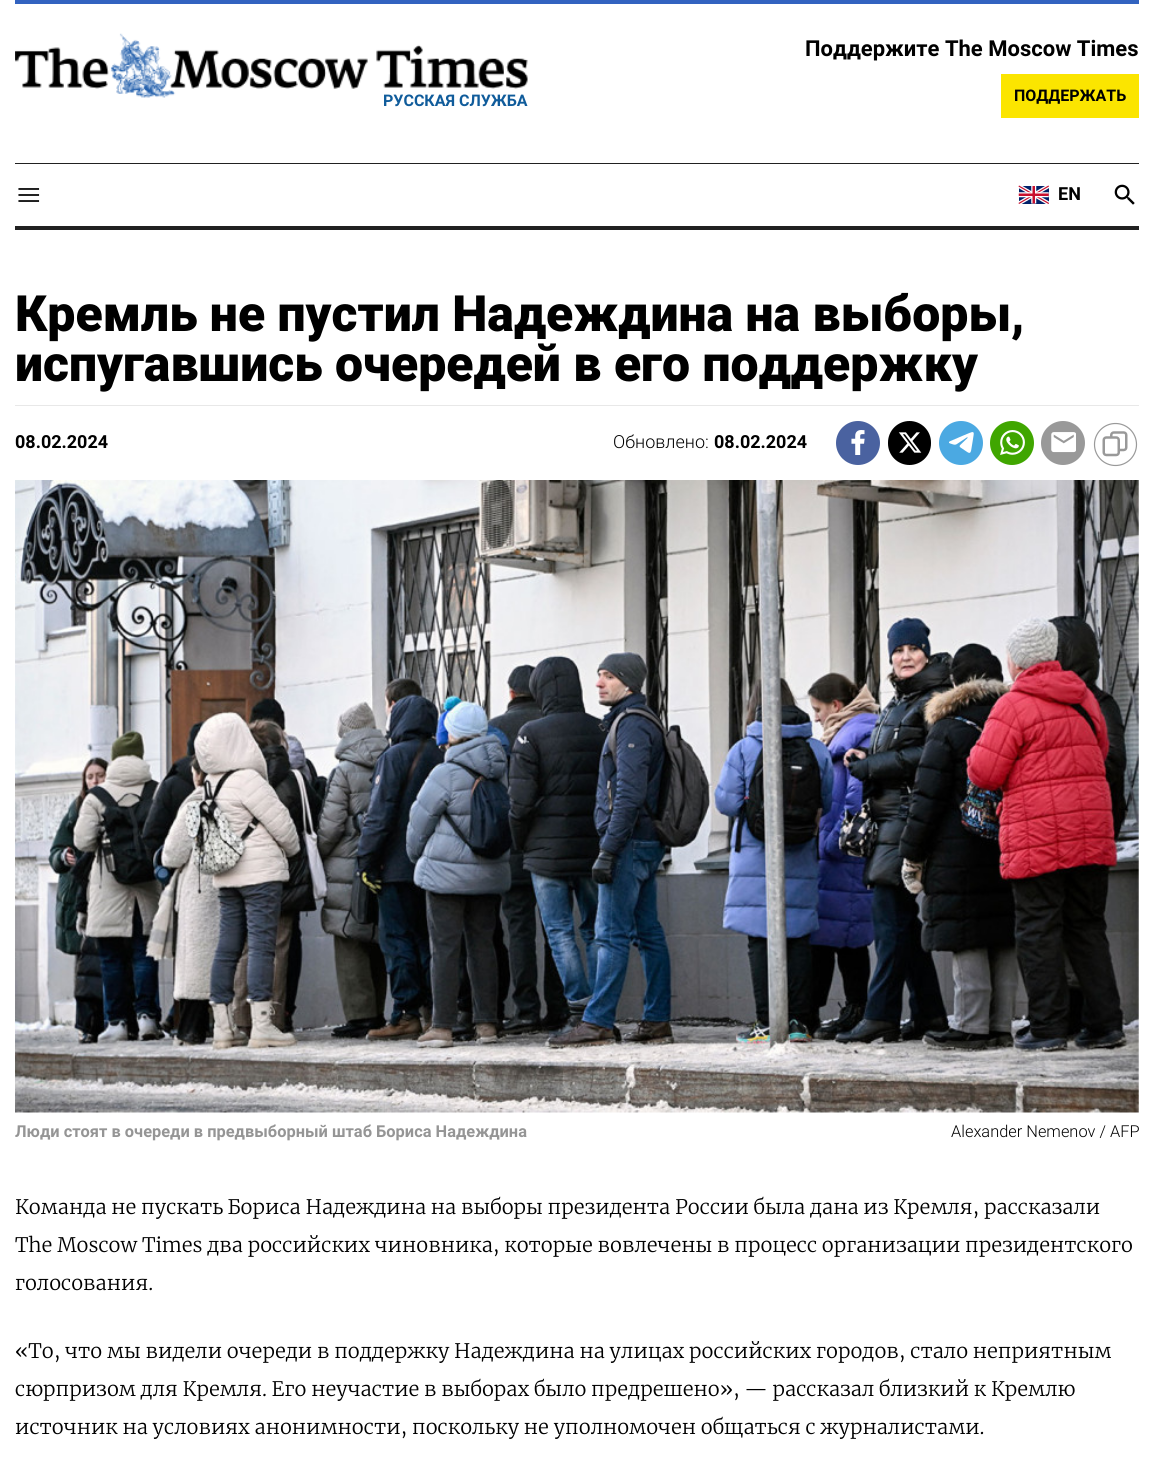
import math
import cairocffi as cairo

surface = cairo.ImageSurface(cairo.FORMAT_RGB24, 1153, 1473)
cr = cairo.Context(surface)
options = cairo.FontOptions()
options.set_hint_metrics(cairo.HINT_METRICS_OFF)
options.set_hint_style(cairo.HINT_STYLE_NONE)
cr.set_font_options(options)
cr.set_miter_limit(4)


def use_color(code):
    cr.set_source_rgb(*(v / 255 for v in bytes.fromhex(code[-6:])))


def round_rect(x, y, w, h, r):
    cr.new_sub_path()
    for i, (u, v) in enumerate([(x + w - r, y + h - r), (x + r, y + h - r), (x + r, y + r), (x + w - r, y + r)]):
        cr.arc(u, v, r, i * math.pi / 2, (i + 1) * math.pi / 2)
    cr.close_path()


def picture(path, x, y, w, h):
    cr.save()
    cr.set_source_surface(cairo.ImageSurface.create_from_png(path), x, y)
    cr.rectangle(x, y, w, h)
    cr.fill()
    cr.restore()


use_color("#ffffff")
cr.paint()
use_color("#3263c0")
cr.rectangle(15, 0, 1124, 4)
cr.fill()
picture("img1.png", 15, 33, 513, 65)
cr.select_font_face("Roboto", cairo.FONT_SLANT_NORMAL, cairo.FONT_WEIGHT_BOLD)
cr.set_font_size(16)
use_color("#105c9b")
cr.move_to(383, 106)
cr.show_text("РУССКАЯ СЛУЖБА")
cr.set_font_size(22)
use_color("#000000")
cr.move_to(805, 56)
cr.show_text("Поддержите The Moscow Times")
use_color("#fbe500")
cr.rectangle(1001, 74, 138, 44)
cr.fill()
cr.set_font_size(16)
use_color("#000000")
cr.move_to(1014, 101)
cr.show_text("ПОДДЕРЖАТЬ")
use_color("#212121")
cr.rectangle(15, 163, 1124, 1)
cr.fill()
cr.rectangle(15, 226, 1124, 4)
cr.fill()
picture("img2.png", 18, 188, 22, 14)
picture("img3.png", 1018, 185, 31, 19)
cr.set_font_size(18)
use_color("#000000")
cr.move_to(1058, 200)
cr.show_text("EN")
picture("img4.png", 1114, 184, 21, 21)
cr.select_font_face("Roboto Black")
cr.set_font_size(50)
cr.move_to(15, 331)
cr.show_text("Кремль не пустил Надеждина на выборы,")
cr.move_to(15, 381)
cr.show_text("испугавшись очередей в его поддержку")
use_color("#e8e8e8")
cr.rectangle(15, 405, 1124, 1)
cr.fill()
cr.select_font_face("Roboto", cairo.FONT_SLANT_NORMAL, cairo.FONT_WEIGHT_BOLD)
cr.set_font_size(18)
use_color("#000000")
cr.move_to(15, 448)
cr.show_text("08.02.2024")
cr.select_font_face("Roboto Light")
cr.move_to(613, 448)
cr.show_text("Обновлено:")
cr.select_font_face("Roboto", cairo.FONT_SLANT_NORMAL, cairo.FONT_WEIGHT_BOLD)
cr.move_to(714, 448)
cr.show_text("08.02.2024")
use_color("#4a62a0")
cr.new_path()
cr.arc(858, 443, 22, 0, 2 * math.pi)
cr.fill()
picture("img5.png", 851, 430, 14, 25)
use_color("#000000")
round_rect(888, 421, 43, 44, 21.5)
cr.fill()
picture("img6.png", 898, 432, 24, 21)
use_color("#4ba9e2")
cr.arc(961, 443, 22, 0, 2 * math.pi)
cr.fill()
picture("img7.png", 949, 432, 25, 21)
use_color("#40a600")
cr.arc(1012, 443, 22, 0, 2 * math.pi)
cr.fill()
picture("img8.png", 1000, 430, 25, 25)
use_color("#999999")
cr.arc(1063, 443, 22, 0, 2 * math.pi)
cr.fill()
picture("img9.png", 1051, 432, 25, 21)
picture("img10.png", 1093, 422, 45, 45)
picture("img11.png", 15, 480, 1124, 633)
cr.set_font_size(16.4)
use_color("#959595")
cr.move_to(15, 1137)
cr.show_text("Люди стоят в очереди в предвыборный штаб Бориса Надеждина")
cr.select_font_face("Roboto Light")
use_color("#000000")
cr.move_to(951, 1137)
cr.show_text("Alexander Nemenov / AFP")
cr.select_font_face("Merriweather Light")
cr.set_font_size(20)
cr.move_to(15, 1214)
cr.show_text("Команда не пускать Бориса Надеждина на выборы президента России была дана из Кремля, рассказали")
cr.move_to(15, 1252)
cr.show_text("The Moscow Times два российских чиновника, которые вовлечены в процесс организации президентского")
cr.move_to(15, 1290)
cr.show_text("голосования.")
cr.move_to(15, 1358)
cr.show_text("«То, что мы видели очереди в поддержку Надеждина на улицах российских городов, стало неприятным")
cr.move_to(15, 1396)
cr.show_text("сюрпризом для Кремля. Его неучастие в выборах было предрешено», — рассказал близкий к Кремлю")
cr.move_to(15, 1434)
cr.show_text("источник на условиях анонимности, поскольку не уполномочен общаться с журналистами.")
surface.write_to_png("result.png")
